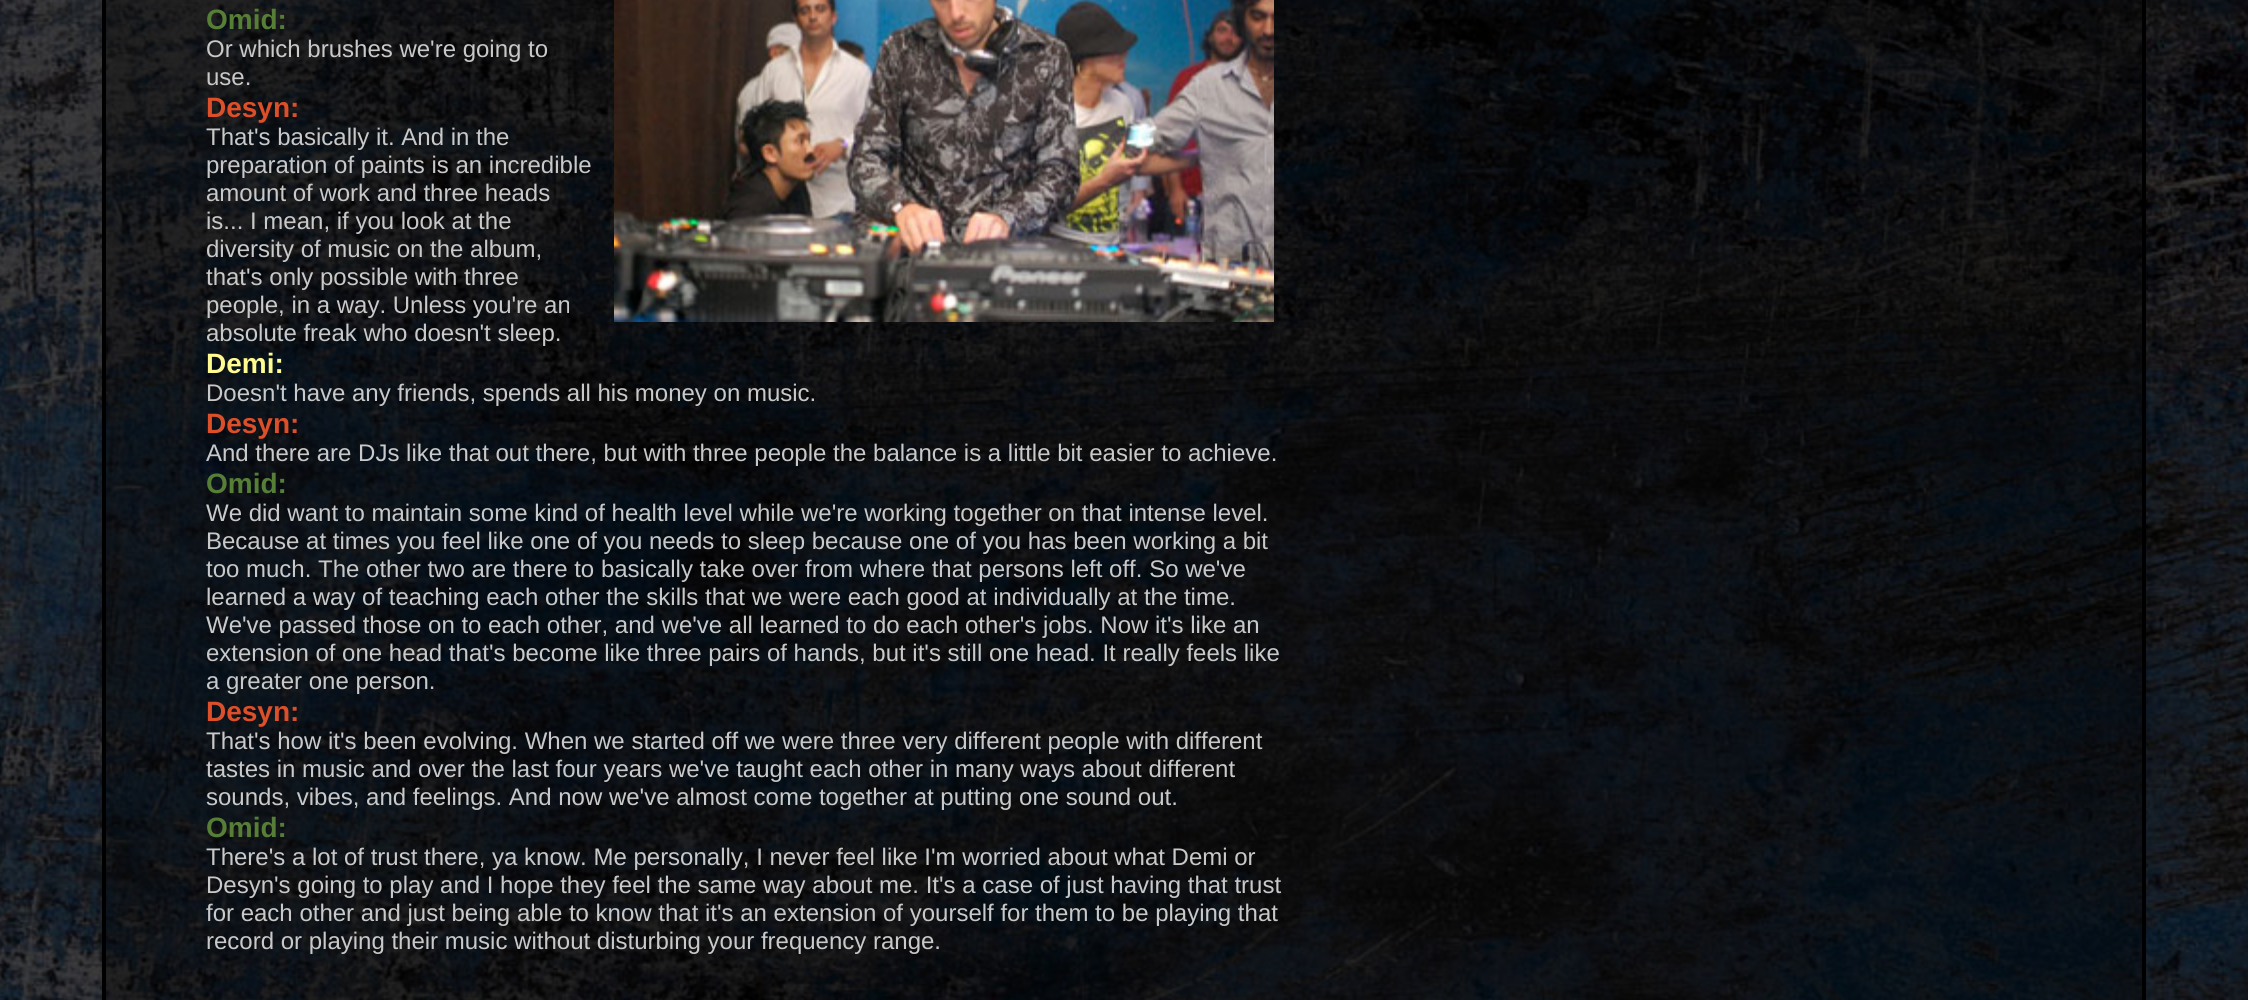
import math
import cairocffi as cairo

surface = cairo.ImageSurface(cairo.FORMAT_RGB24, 2248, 1000)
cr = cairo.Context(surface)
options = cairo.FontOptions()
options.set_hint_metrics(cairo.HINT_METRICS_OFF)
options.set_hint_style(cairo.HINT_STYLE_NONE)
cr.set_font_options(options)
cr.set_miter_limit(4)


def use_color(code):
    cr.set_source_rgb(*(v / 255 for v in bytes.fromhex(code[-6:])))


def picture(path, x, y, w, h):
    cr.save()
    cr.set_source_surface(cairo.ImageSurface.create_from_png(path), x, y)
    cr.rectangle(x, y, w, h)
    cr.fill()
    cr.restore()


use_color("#ffffff")
cr.paint()
picture("img1.png", 0, 0, 2248, 1000)
use_color("#000000")
cr.rectangle(2142, 0, 4, 1000)
cr.fill()
cr.rectangle(102, 0, 4, 1000)
cr.fill()
cr.select_font_face("Liberation Sans", cairo.FONT_SLANT_NORMAL, cairo.FONT_WEIGHT_BOLD)
cr.set_font_size(28)
use_color("#577e37")
cr.move_to(206, 29)
cr.show_text("Omid:")
picture("img2.png", 614, 0, 660, 322)
cr.select_font_face("Liberation Sans")
cr.set_font_size(24)
use_color("#c9c9c9")
cr.move_to(206, 57)
cr.show_text("Or which brushes we're going to")
cr.move_to(206, 85)
cr.show_text("use.")
cr.select_font_face("Liberation Sans", cairo.FONT_SLANT_NORMAL, cairo.FONT_WEIGHT_BOLD)
cr.set_font_size(28)
use_color("#dd4f29")
cr.move_to(206, 117)
cr.show_text("Desyn:")
cr.select_font_face("Liberation Sans")
cr.set_font_size(24)
use_color("#c9c9c9")
cr.move_to(206, 145)
cr.show_text("That's basically it. And in the")
cr.move_to(206, 173)
cr.show_text("preparation of paints is an incredible")
cr.move_to(206, 201)
cr.show_text("amount of work and three heads")
cr.move_to(206, 229)
cr.show_text("is... I mean, if you look at the")
cr.move_to(206, 257)
cr.show_text("diversity of music on the album,")
cr.move_to(206, 285)
cr.show_text("that's only possible with three")
cr.move_to(206, 313)
cr.show_text("people, in a way. Unless you're an")
cr.move_to(206, 341)
cr.show_text("absolute freak who doesn't sleep.")
cr.select_font_face("Liberation Sans", cairo.FONT_SLANT_NORMAL, cairo.FONT_WEIGHT_BOLD)
cr.set_font_size(28)
use_color("#fffb90")
cr.move_to(206, 373)
cr.show_text("Demi:")
cr.select_font_face("Liberation Sans")
cr.set_font_size(24)
use_color("#c9c9c9")
cr.move_to(206, 401)
cr.show_text("Doesn't have any friends, spends all his money on music.")
cr.select_font_face("Liberation Sans", cairo.FONT_SLANT_NORMAL, cairo.FONT_WEIGHT_BOLD)
cr.set_font_size(28)
use_color("#dd4f29")
cr.move_to(206, 433)
cr.show_text("Desyn:")
cr.select_font_face("Liberation Sans")
cr.set_font_size(24)
use_color("#c9c9c9")
cr.move_to(206, 461)
cr.show_text("And there are DJs like that out there, but with three people the balance is a little bit easier to achieve.")
cr.select_font_face("Liberation Sans", cairo.FONT_SLANT_NORMAL, cairo.FONT_WEIGHT_BOLD)
cr.set_font_size(28)
use_color("#577e37")
cr.move_to(206, 493)
cr.show_text("Omid:")
cr.select_font_face("Liberation Sans")
cr.set_font_size(24)
use_color("#c9c9c9")
cr.move_to(206, 521)
cr.show_text("We did want to maintain some kind of health level while we're working together on that intense level.")
cr.move_to(206, 549)
cr.show_text("Because at times you feel like one of you needs to sleep because one of you has been working a bit")
cr.move_to(206, 577)
cr.show_text("too much. The other two are there to basically take over from where that persons left off. So we've")
cr.move_to(206, 605)
cr.show_text("learned a way of teaching each other the skills that we were each good at individually at the time.")
cr.move_to(206, 633)
cr.show_text("We've passed those on to each other, and we've all learned to do each other's jobs. Now it's like an")
cr.move_to(206, 661)
cr.show_text("extension of one head that's become like three pairs of hands, but it's still one head. It really feels like")
cr.move_to(206, 689)
cr.show_text("a greater one person.")
cr.select_font_face("Liberation Sans", cairo.FONT_SLANT_NORMAL, cairo.FONT_WEIGHT_BOLD)
cr.set_font_size(28)
use_color("#dd4f29")
cr.move_to(206, 721)
cr.show_text("Desyn:")
cr.select_font_face("Liberation Sans")
cr.set_font_size(24)
use_color("#c9c9c9")
cr.move_to(206, 749)
cr.show_text("That's how it's been evolving. When we started off we were three very different people with different")
cr.move_to(206, 777)
cr.show_text("tastes in music and over the last four years we've taught each other in many ways about different")
cr.move_to(206, 805)
cr.show_text("sounds, vibes, and feelings. And now we've almost come together at putting one sound out.")
cr.select_font_face("Liberation Sans", cairo.FONT_SLANT_NORMAL, cairo.FONT_WEIGHT_BOLD)
cr.set_font_size(28)
use_color("#577e37")
cr.move_to(206, 837)
cr.show_text("Omid:")
cr.select_font_face("Liberation Sans")
cr.set_font_size(24)
use_color("#c9c9c9")
cr.move_to(206, 865)
cr.show_text("There's a lot of trust there, ya know. Me personally, I never feel like I'm worried about what Demi or")
cr.move_to(206, 893)
cr.show_text("Desyn's going to play and I hope they feel the same way about me. It's a case of just having that trust")
cr.move_to(206, 921)
cr.show_text("for each other and just being able to know that it's an extension of yourself for them to be playing that")
cr.move_to(206, 949)
cr.show_text("record or playing their music without disturbing your frequency range.")
surface.write_to_png("result.png")
